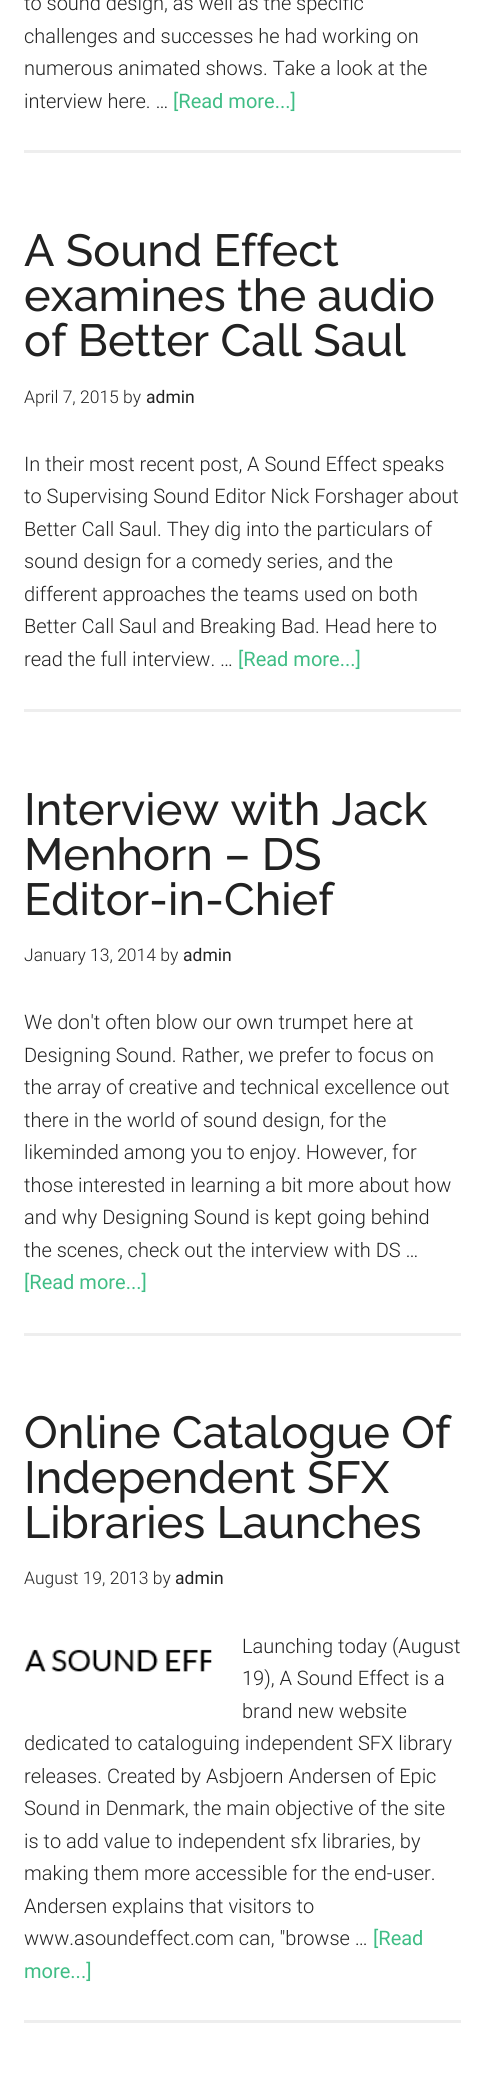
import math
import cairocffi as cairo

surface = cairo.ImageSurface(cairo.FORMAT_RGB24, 484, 2098)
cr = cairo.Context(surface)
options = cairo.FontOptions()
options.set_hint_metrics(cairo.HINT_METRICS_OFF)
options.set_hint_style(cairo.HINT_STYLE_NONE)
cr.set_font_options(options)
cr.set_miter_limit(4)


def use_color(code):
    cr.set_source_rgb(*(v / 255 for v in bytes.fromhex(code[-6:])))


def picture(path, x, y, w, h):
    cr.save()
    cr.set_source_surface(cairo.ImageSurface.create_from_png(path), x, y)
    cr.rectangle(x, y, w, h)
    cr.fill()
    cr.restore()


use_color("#ffffff")
cr.paint()
use_color("#eeeeee")
cr.rectangle(24, 150, 437, 3)
cr.fill()
cr.select_font_face("Roboto Light")
cr.set_font_size(20)
use_color("#222222")
cr.move_to(24, 10)
cr.show_text("to sound design, as well as the specific")
cr.move_to(24, 43)
cr.show_text("challenges and successes he had working on")
cr.move_to(24, 75)
cr.show_text("numerous animated shows. Take a look at the")
cr.move_to(24, 108)
cr.show_text("interview here. …")
cr.select_font_face("Roboto")
use_color("#3fbd85")
cr.move_to(173, 108)
cr.show_text("[Read more...]")
use_color("#eeeeee")
cr.rectangle(24, 709, 437, 3)
cr.fill()
cr.select_font_face("Raleway Medium")
cr.set_font_size(45)
use_color("#222222")
cr.move_to(24, 266)
cr.show_text("A Sound Effect")
cr.move_to(24, 311)
cr.show_text("examines the audio")
cr.move_to(24, 356)
cr.show_text("of Better Call Saul")
cr.select_font_face("Roboto Light")
cr.set_font_size(17.5)
cr.move_to(24, 403)
cr.show_text("April 7, 2015 by")
cr.select_font_face("Roboto")
cr.move_to(146, 403)
cr.show_text("admin")
cr.select_font_face("Roboto Light")
cr.set_font_size(20)
cr.move_to(24, 471)
cr.show_text("In their most recent post, A Sound Effect speaks")
cr.move_to(24, 503)
cr.show_text("to Supervising Sound Editor Nick Forshager about")
cr.move_to(24, 536)
cr.show_text("Better Call Saul. They dig into the particulars of")
cr.move_to(24, 568)
cr.show_text("sound design for a comedy series, and the")
cr.move_to(24, 601)
cr.show_text("different approaches the teams used on both")
cr.move_to(24, 633)
cr.show_text("Better Call Saul and Breaking Bad. Head here to")
cr.move_to(24, 666)
cr.show_text("read the full interview. …")
cr.select_font_face("Roboto")
use_color("#3fbd85")
cr.move_to(238, 666)
cr.show_text("[Read more...]")
use_color("#eeeeee")
cr.rectangle(24, 1333, 437, 3)
cr.fill()
cr.select_font_face("Raleway Medium")
cr.set_font_size(45)
use_color("#222222")
cr.move_to(24, 825)
cr.show_text("Interview with Jack")
cr.move_to(24, 870)
cr.show_text("Menhorn – DS")
cr.move_to(24, 915)
cr.show_text("Editor-in-Chief")
cr.select_font_face("Roboto Light")
cr.set_font_size(17.5)
cr.move_to(24, 961)
cr.show_text("January 13, 2014 by")
cr.select_font_face("Roboto")
cr.move_to(183, 961)
cr.show_text("admin")
cr.select_font_face("Roboto Light")
cr.set_font_size(20)
cr.move_to(24, 1029)
cr.show_text("We don't often blow our own trumpet here at")
cr.move_to(24, 1062)
cr.show_text("Designing Sound. Rather, we prefer to focus on")
cr.move_to(24, 1094)
cr.show_text("the array of creative and technical excellence out")
cr.move_to(24, 1127)
cr.show_text("there in the world of sound design, for the")
cr.move_to(24, 1159)
cr.show_text("likeminded among you to enjoy. However, for")
cr.move_to(24, 1192)
cr.show_text("those interested in learning a bit more about how")
cr.move_to(24, 1224)
cr.show_text("and why Designing Sound is kept going behind")
cr.move_to(24, 1257)
cr.show_text("the scenes, check out the interview with DS …")
cr.select_font_face("Roboto")
use_color("#3fbd85")
cr.move_to(24, 1289)
cr.show_text("[Read more...]")
use_color("#eeeeee")
cr.rectangle(24, 2020, 437, 3)
cr.fill()
cr.select_font_face("Raleway Medium")
cr.set_font_size(45)
use_color("#222222")
cr.move_to(24, 1448)
cr.show_text("Online Catalogue Of")
cr.move_to(24, 1493)
cr.show_text("Independent SFX")
cr.move_to(24, 1538)
cr.show_text("Libraries Launches")
cr.select_font_face("Roboto Light")
cr.set_font_size(17.5)
cr.move_to(24, 1584)
cr.show_text("August 19, 2013 by")
cr.select_font_face("Roboto")
cr.move_to(175, 1584)
cr.show_text("admin")
cr.select_font_face("Roboto Light")
cr.set_font_size(20)
cr.move_to(242, 1653)
cr.show_text("Launching today (August")
cr.move_to(242, 1685)
cr.show_text("19), A Sound Effect is a")
cr.move_to(242, 1718)
cr.show_text("brand new website")
cr.move_to(24, 1750)
cr.show_text("dedicated to cataloguing independent SFX library")
cr.move_to(24, 1783)
cr.show_text("releases. Created by Asbjoern Andersen of Epic")
cr.move_to(24, 1815)
cr.show_text("Sound in Denmark, the main objective of the site")
cr.move_to(24, 1848)
cr.show_text("is to add value to independent sfx libraries, by")
cr.move_to(24, 1880)
cr.show_text("making them more accessible for the end-user.")
cr.move_to(24, 1913)
cr.show_text("Andersen explains that visitors to")
cr.move_to(24, 1945)
cr.show_text("www.asoundeffect.com can, \"browse …")
cr.select_font_face("Roboto")
use_color("#3fbd85")
cr.move_to(373, 1945)
cr.show_text("[Read")
cr.move_to(24, 1978)
cr.show_text("more...]")
picture("img1.png", 24, 1649, 188, 23)
surface.write_to_png("result.png")
